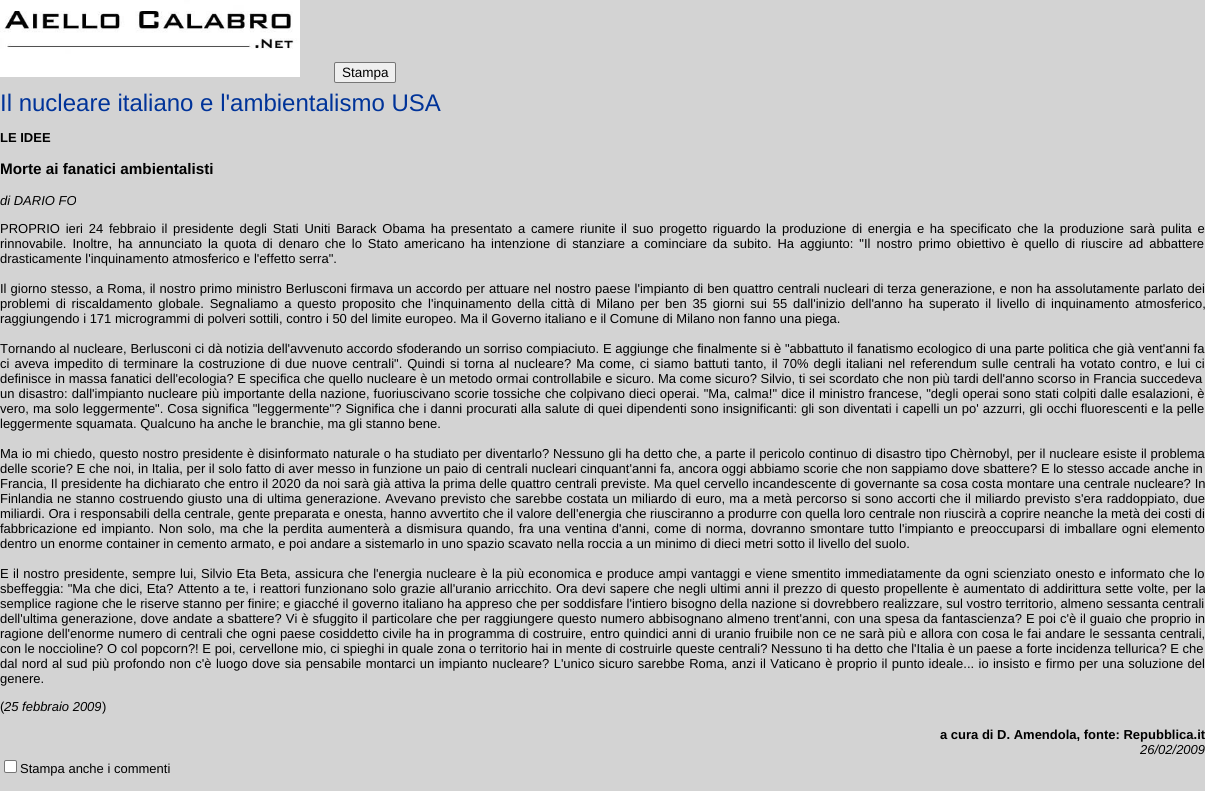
import math
import cairocffi as cairo

surface = cairo.ImageSurface(cairo.FORMAT_RGB24, 1205, 791)
cr = cairo.Context(surface)
options = cairo.FontOptions()
options.set_hint_metrics(cairo.HINT_METRICS_OFF)
options.set_hint_style(cairo.HINT_STYLE_NONE)
cr.set_font_options(options)
cr.set_miter_limit(4)


def use_color(code):
    cr.set_source_rgb(*(v / 255 for v in bytes.fromhex(code[-6:])))


def spaced_text(x, y, s, letter, word):
    cr.move_to(x, y)
    for ch in s:
        cr.show_text(ch)
        cr.rel_move_to(letter + word * (ch == ' '), 0)


def round_rect(x, y, w, h, r):
    cr.new_sub_path()
    for i, (u, v) in enumerate([(x + w - r, y + h - r), (x + r, y + h - r), (x + r, y + r), (x + w - r, y + r)]):
        cr.arc(u, v, r, i * math.pi / 2, (i + 1) * math.pi / 2)
    cr.close_path()


def picture(path, x, y, w, h):
    cr.save()
    cr.set_source_surface(cairo.ImageSurface.create_from_png(path), x, y)
    cr.rectangle(x, y, w, h)
    cr.fill()
    cr.restore()


use_color("#d3d3d3")
cr.paint()
picture("img1.png", 0, 0, 300, 77)
use_color("#efefef")
round_rect(334.5, 62.5, 61, 20, 1.5)
cr.fill_preserve()
use_color("#767676")
cr.set_line_width(1)
cr.stroke()
cr.select_font_face("Liberation Sans")
cr.set_font_size(13.5)
use_color("#000000")
cr.move_to(342, 77)
cr.show_text("Stampa")
cr.set_font_size(24)
use_color("#003399")
cr.move_to(0, 111)
cr.show_text("Il nucleare italiano e l'ambientalismo USA")
cr.select_font_face("Liberation Sans", cairo.FONT_SLANT_NORMAL, cairo.FONT_WEIGHT_BOLD)
cr.set_font_size(13)
use_color("#000000")
cr.move_to(0, 142)
cr.show_text("LE IDEE")
cr.set_font_size(15.25)
cr.move_to(0, 174)
cr.show_text("Morte ai fanatici ambientalisti")
cr.select_font_face("Liberation Sans", cairo.FONT_SLANT_ITALIC)
cr.set_font_size(13)
cr.move_to(0, 205)
cr.show_text("di DARIO FO")
cr.select_font_face("Liberation Sans")
spaced_text(0, 233, "PROPRIO ieri 24 febbraio il presidente degli Stati Uniti Barack Obama ha presentato a camere riunite il suo progetto riguardo la produzione di energia e ha specificato che la produzione sarà pulita e", 0, 2.1)
spaced_text(0, 248, "rinnovabile. Inoltre, ha annunciato la quota di denaro che lo Stato americano ha intenzione di stanziare a cominciare da subito. Ha aggiunto: \"Il nostro primo obiettivo è quello di riuscire ad abbattere", 0, 2.3)
cr.move_to(0, 263)
cr.show_text("drasticamente l'inquinamento atmosferico e l'effetto serra\".")
spaced_text(0, 293, "Il giorno stesso, a Roma, il nostro primo ministro Berlusconi firmava un accordo per attuare nel nostro paese l'impianto di ben quattro centrali nucleari di terza generazione, e non ha assolutamente parlato dei", 0, 0.45)
spaced_text(0, 308, "problemi di riscaldamento globale. Segnaliamo a questo proposito che l'inquinamento della città di Milano per ben 35 giorni sui 55 dall'inizio dell'anno ha superato il livello di inquinamento atmosferico,", 0, 2.2)
cr.move_to(0, 323)
cr.show_text("raggiungendo i 171 microgrammi di polveri sottili, contro i 50 del limite europeo. Ma il Governo italiano e il Comune di Milano non fanno una piega.")
spaced_text(0, 353, "Tornando al nucleare, Berlusconi ci dà notizia dell'avvenuto accordo sfoderando un sorriso compiaciuto. E aggiunge che finalmente si è \"abbattuto il fanatismo ecologico di una parte politica che già vent'anni fa", 0, 0.1)
spaced_text(0, 368, "ci aveva impedito di terminare la costruzione di due nuove centrali\". Quindi si torna al nucleare? Ma come, ci siamo battuti tanto, il 70% degli italiani nel referendum sulle centrali ha votato contro, e lui ci", 0, 1.4)
cr.move_to(0, 383)
cr.show_text("definisce in massa fanatici dell'ecologia? E specifica che quello nucleare è un metodo ormai controllabile e sicuro. Ma come sicuro? Silvio, ti sei scordato che non più tardi dell'anno scorso in Francia succedeva")
spaced_text(0, 398, "un disastro: dall'impianto nucleare più importante della nazione, fuoriuscivano scorie tossiche che colpivano dieci operai. \"Ma, calma!\" dice il ministro francese, \"degli operai sono stati colpiti dalle esalazioni, è", 0, 0.5)
spaced_text(0, 413, "vero, ma solo leggermente\". Cosa significa \"leggermente\"? Significa che i danni procurati alla salute di quei dipendenti sono insignificanti: gli son diventati i capelli un po' azzurri, gli occhi fluorescenti e la pelle", 0, 0.4)
cr.move_to(0, 428)
cr.show_text("leggermente squamata. Qualcuno ha anche le branchie, ma gli stanno bene.")
spaced_text(0, 458, "Ma io mi chiedo, questo nostro presidente è disinformato naturale o ha studiato per diventarlo? Nessuno gli ha detto che, a parte il pericolo continuo di disastro tipo Chèrnobyl, per il nucleare esiste il problema", 0, 0.3)
cr.move_to(0, 473)
cr.show_text("delle scorie? E che noi, in Italia, per il solo fatto di aver messo in funzione un paio di centrali nucleari cinquant'anni fa, ancora oggi abbiamo scorie che non sappiamo dove sbattere? E lo stesso accade anche in")
spaced_text(0, 488, "Francia, Il presidente ha dichiarato che entro il 2020 da noi sarà già attiva la prima delle quattro centrali previste. Ma quel cervello incandescente di governante sa cosa costa montare una centrale nucleare? In", 0, 0.2)
spaced_text(0, 503, "Finlandia ne stanno costruendo giusto una di ultima generazione. Avevano previsto che sarebbe costata un miliardo di euro, ma a metà percorso si sono accorti che il miliardo previsto s'era raddoppiato, due", 0, 0.65)
cr.move_to(0, 518)
cr.show_text("miliardi. Ora i responsabili della centrale, gente preparata e onesta, hanno avvertito che il valore dell'energia che riusciranno a produrre con quella loro centrale non riuscirà a coprire neanche la metà dei costi di")
spaced_text(0, 533, "fabbricazione ed impianto. Non solo, ma che la perdita aumenterà a dismisura quando, fra una ventina d'anni, come di norma, dovranno smontare tutto l'impianto e preoccuparsi di imballare ogni elemento", 0, 1.15)
cr.move_to(0, 548)
cr.show_text("dentro un enorme container in cemento armato, e poi andare a sistemarlo in uno spazio scavato nella roccia a un minimo di dieci metri sotto il livello del suolo.")
spaced_text(0, 578, "E il nostro presidente, sempre lui, Silvio Eta Beta, assicura che l'energia nucleare è la più economica e produce ampi vantaggi e viene smentito immediatamente da ogni scienziato onesto e informato che lo", 0, 0.75)
spaced_text(0, 593, "sbeffeggia: \"Ma che dici, Eta? Attento a te, i reattori funzionano solo grazie all'uranio arricchito. Ora devi sapere che negli ultimi anni il prezzo di questo propellente è aumentato di addirittura sette volte, per la", 0, 0.5)
cr.move_to(0, 608)
cr.show_text("semplice ragione che le riserve stanno per finire; e giacché il governo italiano ha appreso che per soddisfare l'intiero bisogno della nazione si dovrebbero realizzare, sul vostro territorio, almeno sessanta centrali")
spaced_text(0, 623, "dell'ultima generazione, dove andate a sbattere? Vi è sfuggito il particolare che per raggiungere questo numero abbisognano almeno trent'anni, con una spesa da fantascienza? E poi c'è il guaio che proprio in", 0, 0.35)
spaced_text(0, 638, "ragione dell'enorme numero di centrali che ogni paese cosiddetto civile ha in programma di costruire, entro quindici anni di uranio fruibile non ce ne sarà più e allora con cosa le fai andare le sessanta centrali,", 0, 0.4)
cr.move_to(0, 653)
cr.show_text("con le noccioline? O col popcorn?! E poi, cervellone mio, ci spieghi in quale zona o territorio hai in mente di costruirle queste centrali? Nessuno ti ha detto che l'Italia è un paese a forte incidenza tellurica? E che")
spaced_text(0, 668, "dal nord al sud più profondo non c'è luogo dove sia pensabile montarci un impianto nucleare? L'unico sicuro sarebbe Roma, anzi il Vaticano è proprio il punto ideale... io insisto e firmo per una soluzione del", 0, 0.75)
cr.move_to(0, 683)
cr.show_text("genere.")
cr.move_to(0, 711)
cr.show_text("(")
cr.select_font_face("Liberation Sans", cairo.FONT_SLANT_ITALIC)
cr.move_to(4, 711)
cr.show_text("25 febbraio 2009")
cr.select_font_face("Liberation Sans")
cr.move_to(102, 711)
cr.show_text(")")
cr.select_font_face("Liberation Sans", cairo.FONT_SLANT_NORMAL, cairo.FONT_WEIGHT_BOLD)
cr.move_to(940, 739)
cr.show_text("a cura di D. Amendola, fonte: Repubblica.it")
cr.select_font_face("Liberation Sans", cairo.FONT_SLANT_ITALIC)
cr.move_to(1140, 754)
cr.show_text("26/02/2009")
use_color("#ffffff")
round_rect(4.5, 760.5, 12, 12, 1.5)
cr.fill_preserve()
use_color("#767676")
cr.stroke()
cr.select_font_face("Liberation Sans")
use_color("#000000")
cr.move_to(20, 773)
cr.show_text("Stampa anche i commenti")
surface.write_to_png("result.png")
